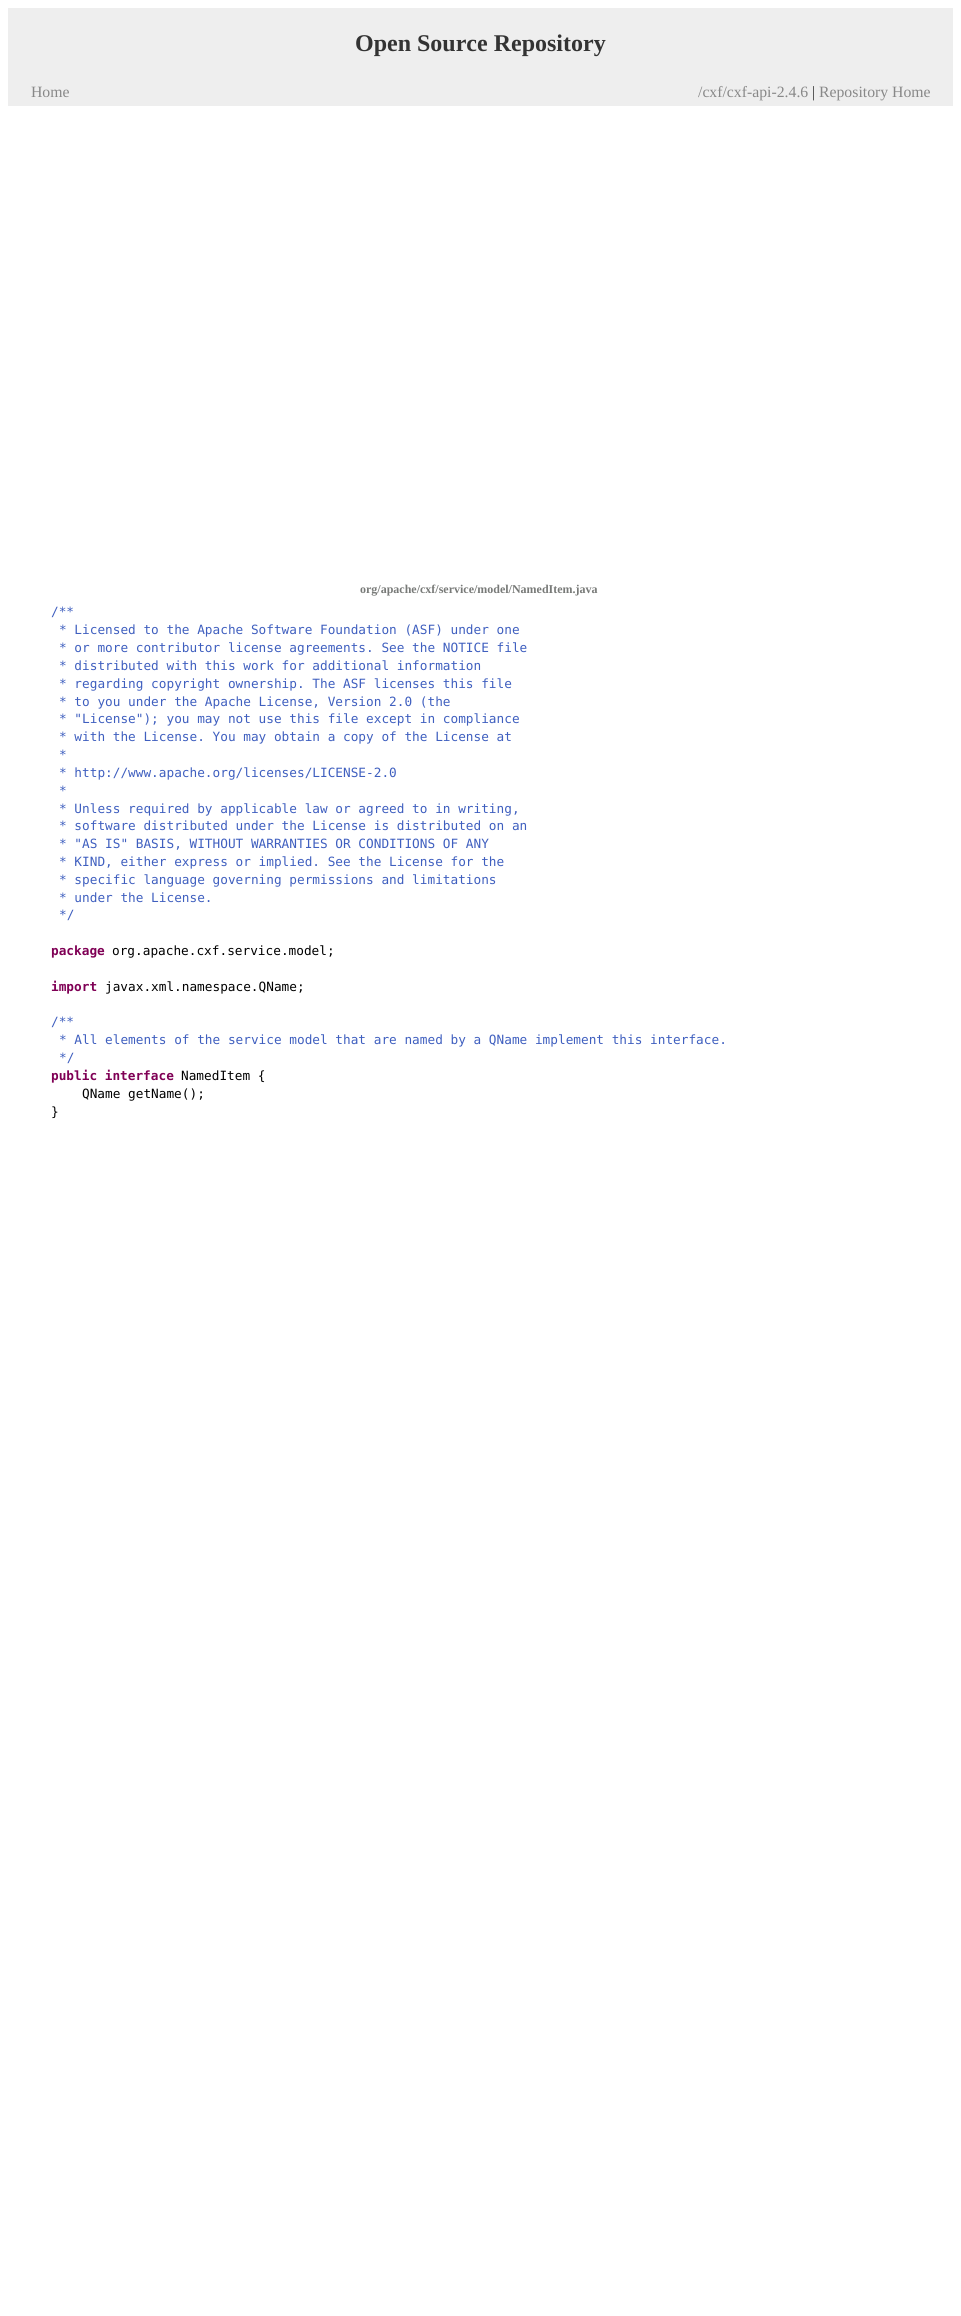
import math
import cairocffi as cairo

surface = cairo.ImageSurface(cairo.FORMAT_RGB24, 961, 2316)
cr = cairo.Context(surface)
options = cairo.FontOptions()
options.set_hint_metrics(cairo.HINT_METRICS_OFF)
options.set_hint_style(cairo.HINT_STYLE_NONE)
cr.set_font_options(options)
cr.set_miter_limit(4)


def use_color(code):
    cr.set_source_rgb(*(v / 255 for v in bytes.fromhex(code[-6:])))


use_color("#ffffff")
cr.paint()
use_color("#eeeeee")
cr.rectangle(8, 8, 945, 98)
cr.fill()
cr.select_font_face("Liberation Serif", cairo.FONT_SLANT_NORMAL, cairo.FONT_WEIGHT_BOLD)
cr.set_font_size(24)
use_color("#333333")
cr.move_to(355, 51)
cr.show_text("Open Source Repository")
cr.select_font_face("Liberation Serif")
cr.set_font_size(15.75)
use_color("#888888")
cr.move_to(31, 97)
cr.show_text("Home")
cr.move_to(698, 97)
cr.show_text("/cxf/cxf-api-2.4.6")
use_color("#333333")
cr.move_to(812, 97)
cr.show_text("|")
use_color("#888888")
cr.move_to(819, 97)
cr.show_text("Repository Home")
cr.select_font_face("Liberation Serif", cairo.FONT_SLANT_NORMAL, cairo.FONT_WEIGHT_BOLD)
cr.set_font_size(12)
use_color("#787a78")
cr.move_to(360, 593)
cr.show_text("org/apache/cxf/service/model/NamedItem.java")
cr.select_font_face("DejaVu Sans Mono")
cr.set_font_size(12.75)
use_color("#3f5fbf")
cr.move_to(51, 616)
cr.show_text("/**")
cr.move_to(59, 634)
cr.show_text("* Licensed to the Apache Software Foundation (ASF) under one")
cr.move_to(59, 652)
cr.show_text("* or more contributor license agreements. See the NOTICE file")
cr.move_to(59, 670)
cr.show_text("* distributed with this work for additional information")
cr.move_to(59, 688)
cr.show_text("* regarding copyright ownership. The ASF licenses this file")
cr.move_to(59, 706)
cr.show_text("* to you under the Apache License, Version 2.0 (the")
cr.move_to(59, 723)
cr.show_text("* \"License\"); you may not use this file except in compliance")
cr.move_to(59, 741)
cr.show_text("* with the License. You may obtain a copy of the License at")
cr.move_to(59, 759)
cr.show_text("*")
cr.move_to(59, 777)
cr.show_text("* http://www.apache.org/licenses/LICENSE-2.0")
cr.move_to(59, 795)
cr.show_text("*")
cr.move_to(59, 813)
cr.show_text("* Unless required by applicable law or agreed to in writing,")
cr.move_to(59, 830)
cr.show_text("* software distributed under the License is distributed on an")
cr.move_to(59, 848)
cr.show_text("* \"AS IS\" BASIS, WITHOUT WARRANTIES OR CONDITIONS OF ANY")
cr.move_to(59, 866)
cr.show_text("* KIND, either express or implied. See the License for the")
cr.move_to(59, 884)
cr.show_text("* specific language governing permissions and limitations")
cr.move_to(59, 902)
cr.show_text("* under the License.")
cr.move_to(59, 919)
cr.show_text("*/")
cr.select_font_face("DejaVu Sans Mono", cairo.FONT_SLANT_NORMAL, cairo.FONT_WEIGHT_BOLD)
use_color("#7f0055")
cr.move_to(51, 955)
cr.show_text("package")
cr.select_font_face("DejaVu Sans Mono")
use_color("#000000")
cr.move_to(112, 955)
cr.show_text("org.apache.cxf.service.model;")
cr.select_font_face("DejaVu Sans Mono", cairo.FONT_SLANT_NORMAL, cairo.FONT_WEIGHT_BOLD)
use_color("#7f0055")
cr.move_to(51, 991)
cr.show_text("import")
cr.select_font_face("DejaVu Sans Mono")
use_color("#000000")
cr.move_to(105, 991)
cr.show_text("javax.xml.namespace.QName;")
use_color("#3f5fbf")
cr.move_to(51, 1026)
cr.show_text("/**")
cr.move_to(59, 1044)
cr.show_text("* All elements of the service model that are named by a QName implement this interface.")
cr.move_to(59, 1062)
cr.show_text("*/")
cr.select_font_face("DejaVu Sans Mono", cairo.FONT_SLANT_NORMAL, cairo.FONT_WEIGHT_BOLD)
use_color("#7f0055")
cr.move_to(51, 1080)
cr.show_text("public interface")
cr.select_font_face("DejaVu Sans Mono")
use_color("#000000")
cr.move_to(181, 1080)
cr.show_text("NamedItem {")
cr.move_to(82, 1098)
cr.show_text("QName getName();")
cr.move_to(51, 1116)
cr.show_text("}")
surface.write_to_png("result.png")
